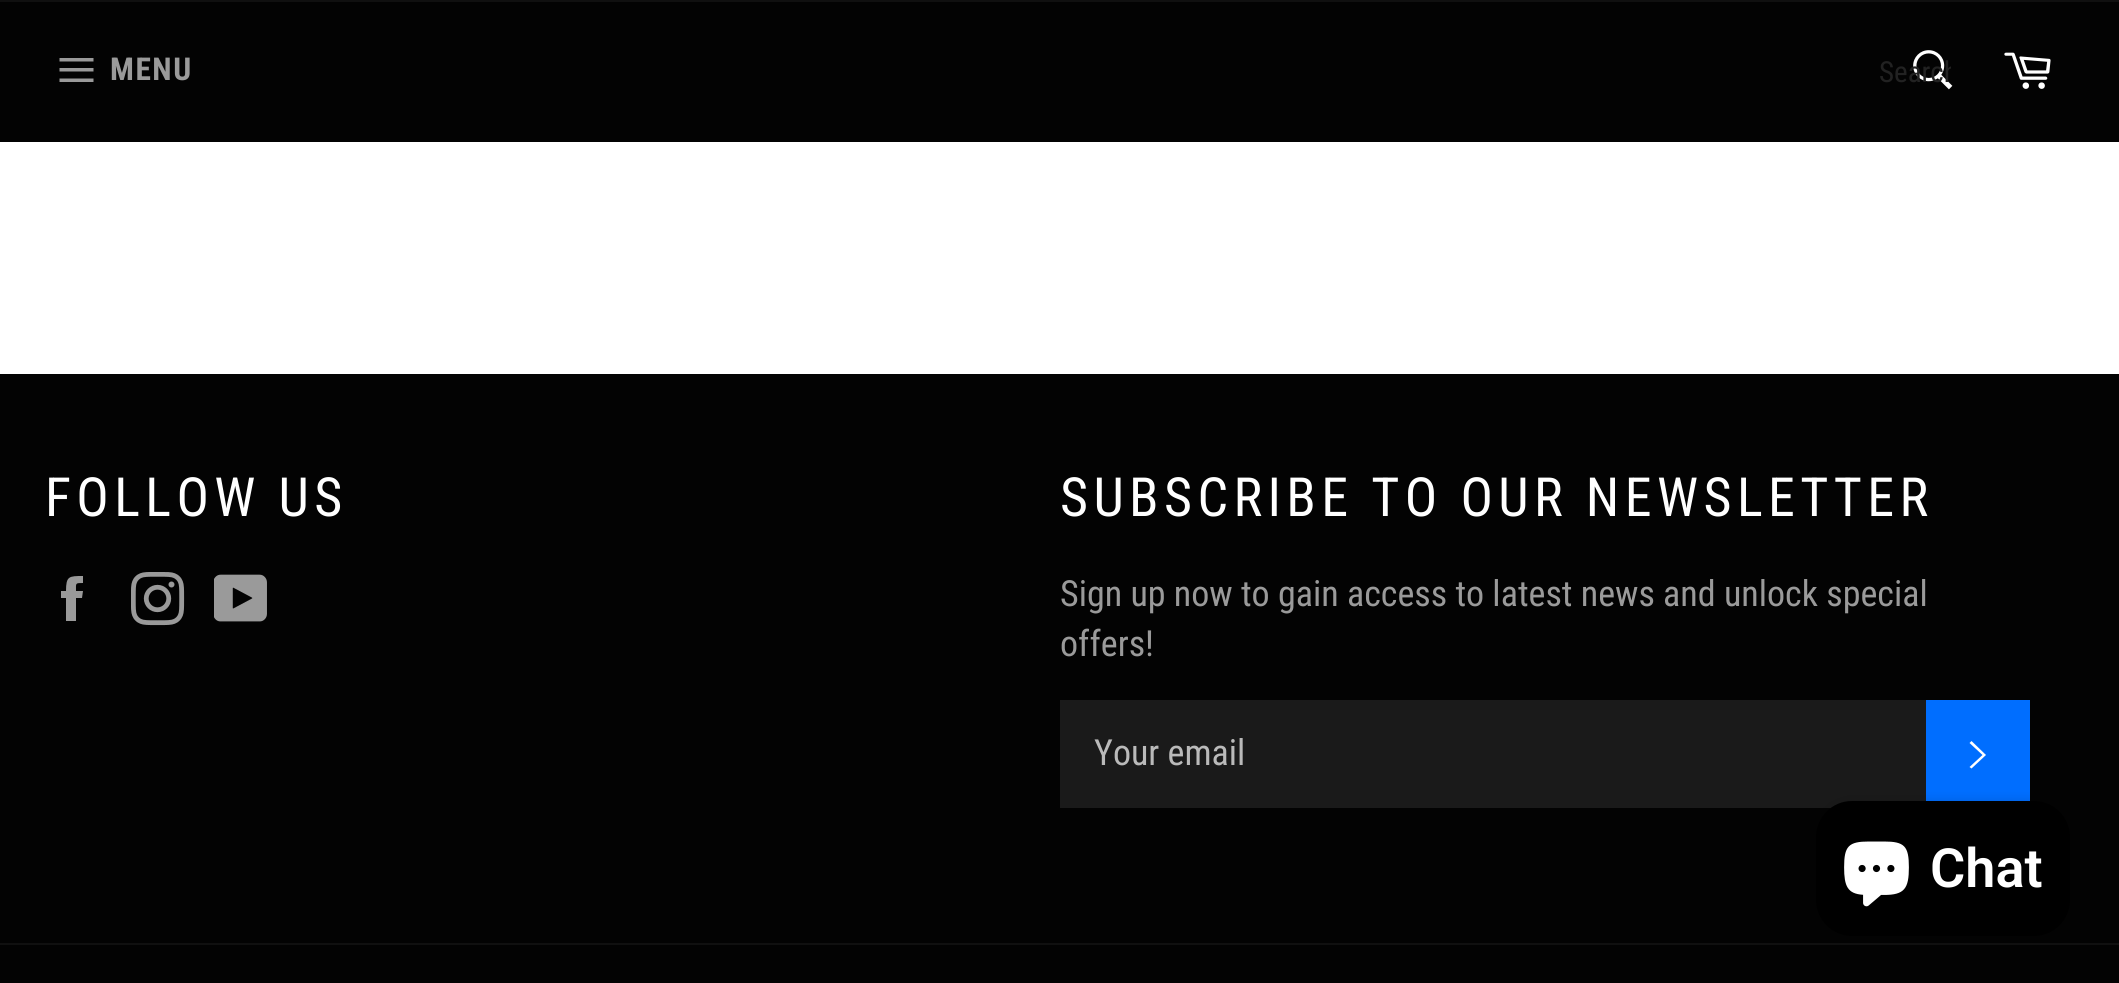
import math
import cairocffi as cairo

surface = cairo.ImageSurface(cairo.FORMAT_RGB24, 2119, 983)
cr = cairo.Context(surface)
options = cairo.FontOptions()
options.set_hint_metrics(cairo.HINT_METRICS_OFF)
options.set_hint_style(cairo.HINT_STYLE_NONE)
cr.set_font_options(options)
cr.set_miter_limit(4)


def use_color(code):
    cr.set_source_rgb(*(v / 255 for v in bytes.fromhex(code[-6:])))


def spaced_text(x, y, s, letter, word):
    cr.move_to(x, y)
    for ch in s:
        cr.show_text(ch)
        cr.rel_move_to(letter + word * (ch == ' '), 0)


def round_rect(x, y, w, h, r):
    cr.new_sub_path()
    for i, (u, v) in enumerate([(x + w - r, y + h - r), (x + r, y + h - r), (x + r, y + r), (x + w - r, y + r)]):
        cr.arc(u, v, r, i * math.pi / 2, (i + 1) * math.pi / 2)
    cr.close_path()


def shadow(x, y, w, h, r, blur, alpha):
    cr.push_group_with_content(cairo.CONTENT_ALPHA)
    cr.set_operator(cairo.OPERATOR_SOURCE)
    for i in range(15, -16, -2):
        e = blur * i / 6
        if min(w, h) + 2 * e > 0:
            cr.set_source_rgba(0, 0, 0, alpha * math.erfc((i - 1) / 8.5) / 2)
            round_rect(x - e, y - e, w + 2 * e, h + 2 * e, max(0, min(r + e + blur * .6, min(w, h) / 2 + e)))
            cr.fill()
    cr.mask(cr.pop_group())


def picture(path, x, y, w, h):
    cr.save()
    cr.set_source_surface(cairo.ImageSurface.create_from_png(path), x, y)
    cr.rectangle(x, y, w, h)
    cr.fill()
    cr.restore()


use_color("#ffffff")
cr.paint()
use_color("#030303")
cr.rectangle(0, 2, 2119, 140)
cr.fill()
use_color("#101010")
cr.rectangle(0, 0, 2119, 2)
cr.fill()
use_color("#9a9a9a")
cr.new_path()
cr.move_to(59.5, 68)
cr.line_to(93.5, 68)
cr.line_to(93.5, 71.5)
cr.line_to(59.5, 71.5)
cr.close_path()
cr.move_to(59.5, 58)
cr.line_to(93.5, 58)
cr.line_to(93.5, 61.5)
cr.line_to(59.5, 61.5)
cr.close_path()
cr.move_to(59.5, 78.5)
cr.line_to(93.5, 78.5)
cr.line_to(93.5, 82)
cr.line_to(59.5, 82)
cr.close_path()
cr.fill()
cr.select_font_face("Roboto Condensed", cairo.FONT_SLANT_NORMAL, cairo.FONT_WEIGHT_BOLD)
cr.set_font_size(31.5)
spaced_text(110, 80, "MENU", 1.5, 0)
picture("img1.png", 1913, 50, 40, 40)
cr.save()
cr.rectangle(1879, 56, 72, 34)
cr.clip()
cr.select_font_face("Roboto Condensed")
cr.set_font_size(29)
use_color("#222222")
cr.move_to(1879, 82)
cr.show_text("Search")
cr.restore()
picture("img2.png", 2004, 52, 47, 37)
use_color("#030303")
cr.rectangle(0, 374, 2119, 609)
cr.fill()
cr.select_font_face("Roboto Condensed")
cr.set_font_size(54)
use_color("#ffffff")
spaced_text(45, 516, "FOLLOW US", 5.4, 0)
use_color("#9a9a9a")
cr.new_path()
cr.move_to(76, 591)
cr.curve_to(76, 583, 75, 583, 83, 583)
cr.line_to(83, 576)
cr.curve_to(69, 576, 66, 576, 66, 591)
cr.line_to(61, 591)
cr.line_to(61, 598)
cr.line_to(66, 598)
cr.line_to(66, 621)
cr.line_to(76, 621)
cr.line_to(76, 598)
cr.line_to(82, 598)
cr.line_to(83, 591)
cr.close_path()
cr.fill()
picture("img3.png", 131, 572, 54, 54)
picture("img4.png", 214, 574, 53, 48)
use_color("#ffffff")
spaced_text(1060, 516, "SUBSCRIBE TO OUR NEWSLETTER", 5.4, 0)
cr.set_font_size(36)
use_color("#9a9a9a")
cr.move_to(1060, 606)
cr.show_text("Sign up now to gain access to latest news and unlock special")
cr.move_to(1060, 656)
cr.show_text("offers!")
use_color("#1a1a1a")
cr.rectangle(1060, 700, 866, 108)
cr.fill()
use_color("#bababa")
cr.move_to(1094, 765)
cr.show_text("Your email")
use_color("#006eff")
cr.rectangle(1926, 700, 104, 101)
cr.fill()
use_color("#ffffff")
cr.new_path()
cr.move_to(1969.5, 743)
cr.line_to(1971.5, 741)
cr.line_to(1986, 755)
cr.line_to(1971.5, 768.5)
cr.line_to(1969.5, 767)
cr.line_to(1982.5, 755)
cr.close_path()
cr.fill()
use_color("#101010")
cr.rectangle(0, 943, 2119, 2)
cr.fill()
use_color("#000000")
shadow(1816, 801, 254, 135, 36, 5.5, 0.15)
use_color("#000000")
round_rect(1816, 801, 254, 135, 36)
cr.fill()
picture("img5.png", 1844, 841, 65, 66)
cr.select_font_face("Roboto SemiBold")
cr.set_font_size(54)
use_color("#ffffff")
cr.move_to(1930, 887)
cr.show_text("Chat")
surface.write_to_png("result.png")
